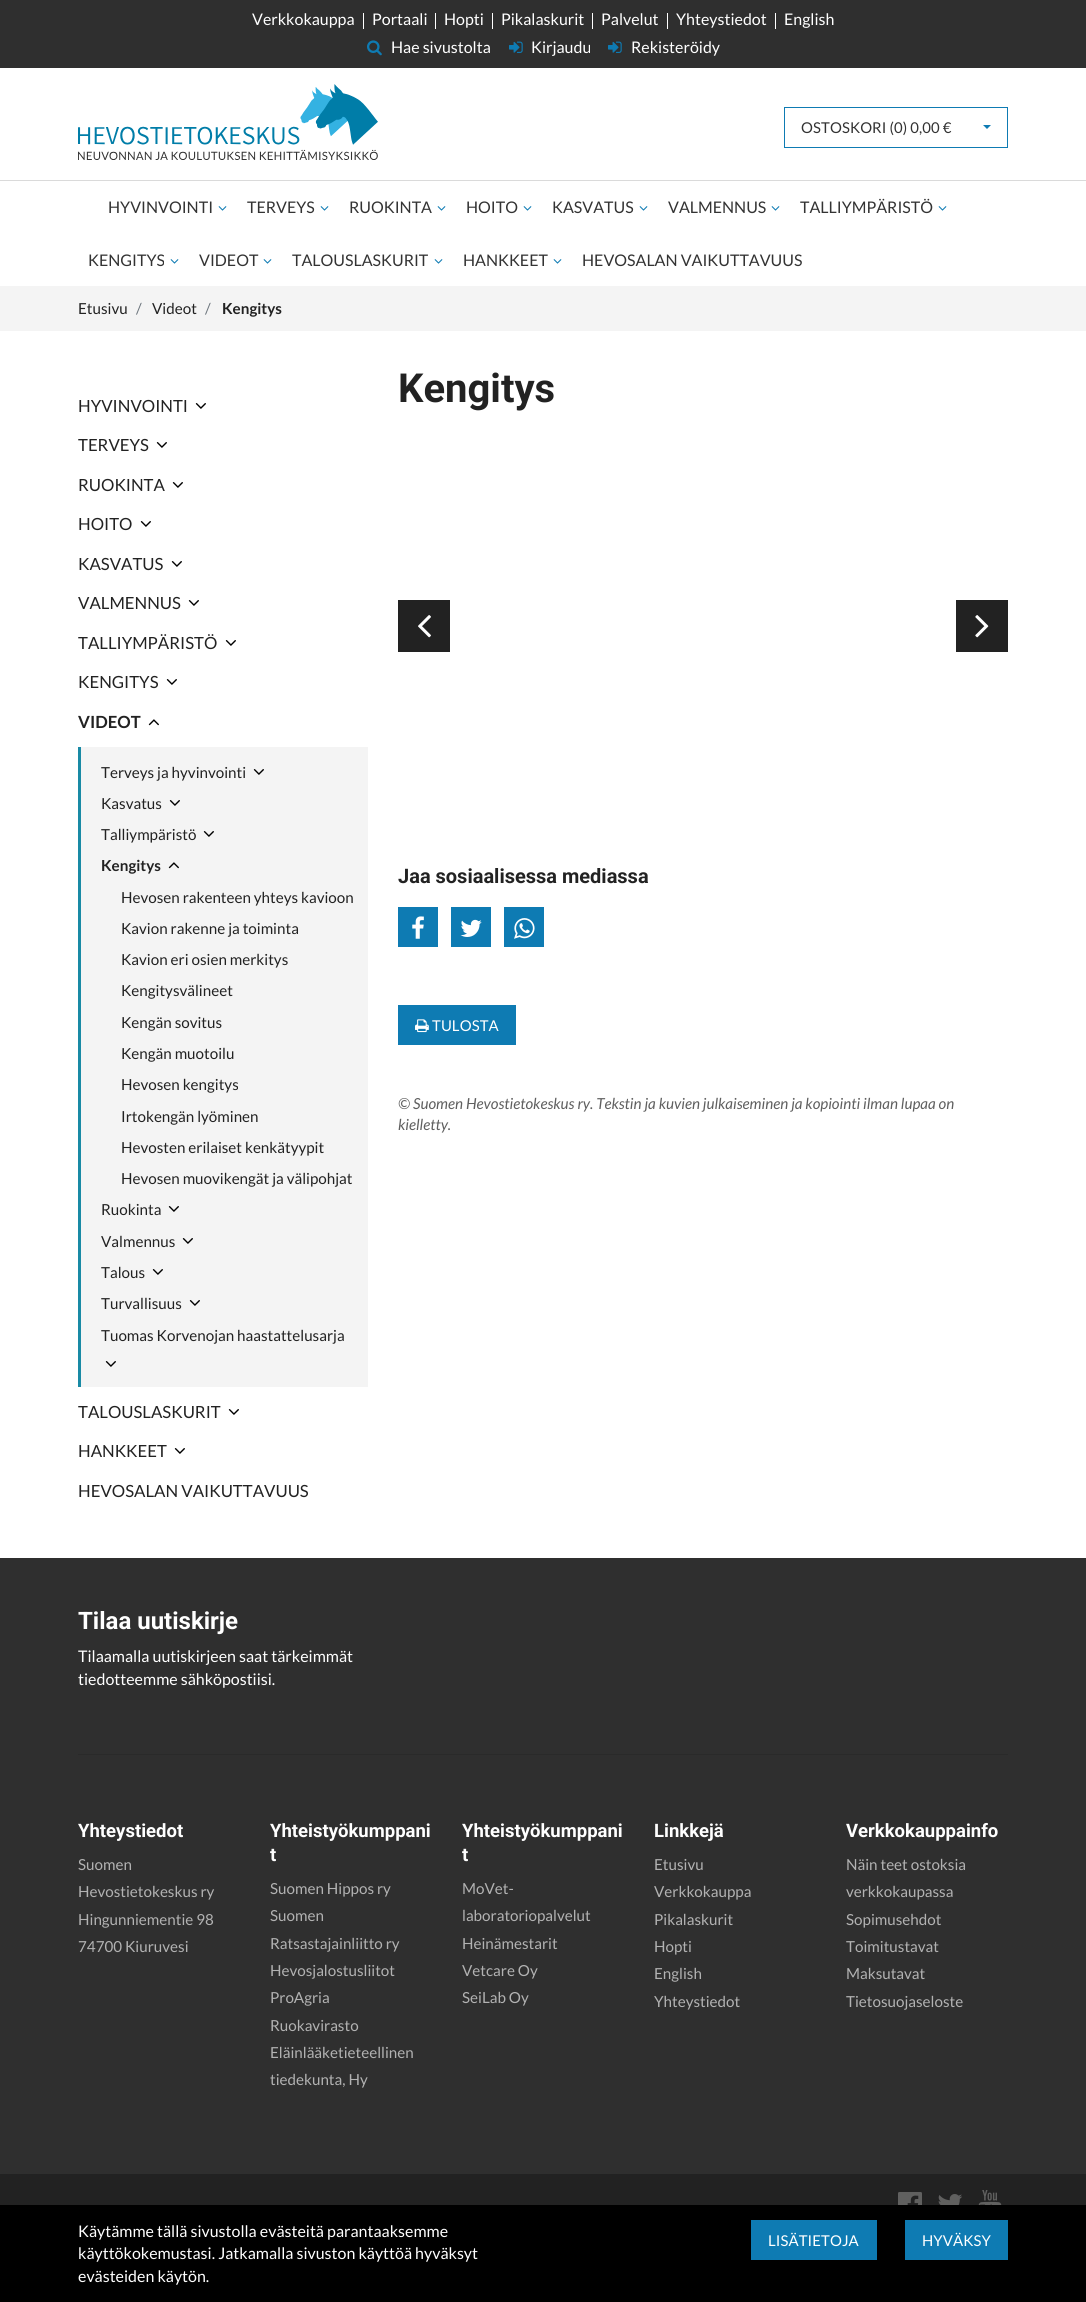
import math
import cairocffi as cairo

surface = cairo.ImageSurface(cairo.FORMAT_RGB24, 1086, 2302)
cr = cairo.Context(surface)
options = cairo.FontOptions()
options.set_hint_metrics(cairo.HINT_METRICS_OFF)
options.set_hint_style(cairo.HINT_STYLE_NONE)
cr.set_font_options(options)
cr.set_miter_limit(4)


def use_color(code):
    cr.set_source_rgb(*(v / 255 for v in bytes.fromhex(code[-6:])))


def spaced_text(x, y, s, letter, word):
    cr.move_to(x, y)
    for ch in s:
        cr.show_text(ch)
        cr.rel_move_to(letter + word * (ch == ' '), 0)


def picture(path, x, y, w, h):
    cr.save()
    cr.set_source_surface(cairo.ImageSurface.create_from_png(path), x, y)
    cr.rectangle(x, y, w, h)
    cr.fill()
    cr.restore()


use_color("#ffffff")
cr.paint()
use_color("#2f2f2f")
cr.rectangle(0, 0, 1086, 68)
cr.fill()
cr.select_font_face("Lato")
cr.set_font_size(16)
use_color("#ffffff")
cr.move_to(252, 25)
cr.show_text("Verkkokauppa")
cr.rectangle(363, 13, 1, 16)
cr.fill()
cr.move_to(372, 25)
cr.show_text("Portaali")
cr.rectangle(435, 13, 1, 16)
cr.fill()
cr.move_to(444, 25)
cr.show_text("Hopti")
cr.rectangle(492, 13, 1, 16)
cr.fill()
cr.move_to(501, 25)
cr.show_text("Pikalaskurit")
cr.rectangle(592, 13, 1, 16)
cr.fill()
cr.move_to(601, 25)
cr.show_text("Palvelut")
cr.rectangle(667, 13, 1, 16)
cr.fill()
cr.move_to(676, 25)
cr.show_text("Yhteystiedot")
cr.rectangle(775, 13, 1, 16)
cr.fill()
cr.move_to(784, 25)
cr.show_text("English")
picture("img1.png", 367, 40, 15, 16)
cr.move_to(391, 53)
cr.show_text("Hae sivustolta")
picture("img2.png", 509, 41, 14, 12)
cr.move_to(531, 53)
cr.show_text("Kirjaudu")
picture("img2.png", 608, 41, 14, 12)
cr.move_to(631, 53)
cr.show_text("Rekisteröidy")
picture("img3.png", 78, 84, 300, 76)
use_color("#0e7bb3")
cr.rectangle(784, 107, 224, 1)
cr.fill()
cr.rectangle(784, 147, 184, 1)
cr.fill()
cr.rectangle(784, 107, 1, 41)
cr.fill()
cr.set_font_size(14.9)
use_color("#333333")
spaced_text(801, 133, "OSTOSKORI (0) 0,00 €", 0.1, 0)
use_color("#0e7bb3")
cr.rectangle(1007, 107, 1, 41)
cr.fill()
cr.rectangle(967, 147, 41, 1)
cr.fill()
cr.new_path()
cr.move_to(983, 125)
cr.line_to(991, 125)
cr.line_to(987, 129)
cr.close_path()
cr.fill()
use_color("#dadada")
cr.rectangle(0, 180, 1086, 1)
cr.fill()
cr.set_font_size(16)
use_color("#333333")
cr.move_to(108, 213)
cr.show_text("HYVINVOINTI")
picture("img4.png", 218, 206, 9, 5)
cr.move_to(247, 213)
cr.show_text("TERVEYS")
picture("img4.png", 320, 206, 9, 5)
cr.move_to(349, 213)
cr.show_text("RUOKINTA")
picture("img4.png", 437, 206, 9, 5)
cr.move_to(466, 213)
cr.show_text("HOITO")
picture("img4.png", 523, 206, 9, 5)
cr.move_to(552, 213)
cr.show_text("KASVATUS")
picture("img4.png", 639, 206, 9, 5)
cr.move_to(668, 213)
cr.show_text("VALMENNUS")
picture("img4.png", 771, 206, 9, 5)
cr.move_to(800, 213)
cr.show_text("TALLIYMPÄRISTÖ")
picture("img4.png", 938, 206, 9, 5)
cr.move_to(88, 266)
cr.show_text("KENGITYS")
picture("img4.png", 170, 259, 9, 5)
cr.move_to(199, 266)
cr.show_text("VIDEOT")
picture("img4.png", 263, 259, 9, 5)
cr.move_to(292, 266)
cr.show_text("TALOUSLASKURIT")
picture("img4.png", 434, 259, 9, 5)
cr.move_to(463, 266)
cr.show_text("HANKKEET")
picture("img4.png", 553, 259, 9, 5)
cr.move_to(582, 266)
cr.show_text("HEVOSALAN VAIKUTTAVUUS")
use_color("#f4f4f4")
cr.rectangle(0, 286, 1086, 45)
cr.fill()
cr.set_font_size(15.2)
use_color("#222222")
cr.move_to(78, 314)
cr.show_text("Etusivu")
use_color("#6c757d")
cr.move_to(136, 314)
cr.show_text("/")
use_color("#222222")
cr.move_to(152, 314)
cr.show_text("Videot")
use_color("#6c757d")
cr.move_to(205, 314)
cr.show_text("/")
cr.select_font_face("Lato", cairo.FONT_SLANT_NORMAL, cairo.FONT_WEIGHT_BOLD)
use_color("#222222")
cr.move_to(222, 314)
cr.show_text("Kengitys")
cr.select_font_face("Lato")
cr.set_font_size(16.75)
cr.move_to(78, 412)
cr.show_text("HYVINVOINTI")
picture("img5.png", 195, 403, 11, 6)
cr.move_to(78, 451)
cr.show_text("TERVEYS")
picture("img5.png", 156, 442, 11, 6)
cr.move_to(78, 491)
cr.show_text("RUOKINTA")
picture("img5.png", 172, 482, 11, 6)
cr.move_to(78, 530)
cr.show_text("HOITO")
picture("img5.png", 140, 521, 11, 6)
cr.move_to(78, 570)
cr.show_text("KASVATUS")
picture("img5.png", 171, 561, 11, 6)
cr.move_to(78, 609)
cr.show_text("VALMENNUS")
picture("img5.png", 188, 600, 11, 6)
cr.move_to(78, 649)
cr.show_text("TALLIYMPÄRISTÖ")
picture("img5.png", 225, 640, 11, 6)
cr.move_to(78, 688)
cr.show_text("KENGITYS")
picture("img5.png", 166, 679, 11, 6)
cr.select_font_face("Lato", cairo.FONT_SLANT_NORMAL, cairo.FONT_WEIGHT_BOLD)
cr.move_to(78, 728)
cr.show_text("VIDEOT")
picture("img6.png", 148, 719, 11, 7)
use_color("#f4f4f4")
cr.rectangle(81, 747, 287, 640)
cr.fill()
use_color("#198aa5")
cr.rectangle(78, 747, 3, 640)
cr.fill()
cr.select_font_face("Lato")
cr.set_font_size(15.2)
use_color("#222222")
cr.move_to(101, 778)
cr.show_text("Terveys ja hyvinvointi")
picture("img7.png", 253, 769, 11, 6)
cr.move_to(101, 809)
cr.show_text("Kasvatus")
picture("img7.png", 169, 800, 11, 6)
cr.move_to(101, 840)
cr.show_text("Talliympäristö")
picture("img7.png", 203, 831, 11, 6)
cr.select_font_face("Lato", cairo.FONT_SLANT_NORMAL, cairo.FONT_WEIGHT_BOLD)
cr.move_to(101, 871)
cr.show_text("Kengitys")
picture("img8.png", 168, 862, 11, 7)
cr.select_font_face("Lato")
cr.move_to(121, 903)
cr.show_text("Hevosen rakenteen yhteys kavioon")
cr.move_to(121, 934)
cr.show_text("Kavion rakenne ja toiminta")
cr.move_to(121, 965)
cr.show_text("Kavion eri osien merkitys")
cr.move_to(121, 996)
cr.show_text("Kengitysvälineet")
cr.move_to(121, 1028)
cr.show_text("Kengän sovitus")
cr.move_to(121, 1059)
cr.show_text("Kengän muotoilu")
cr.move_to(121, 1090)
cr.show_text("Hevosen kengitys")
cr.move_to(121, 1122)
cr.show_text("Irtokengän lyöminen")
cr.move_to(121, 1153)
cr.show_text("Hevosten erilaiset kenkätyypit")
cr.move_to(121, 1184)
cr.show_text("Hevosen muovikengät ja välipohjat")
cr.move_to(101, 1215)
cr.show_text("Ruokinta")
picture("img7.png", 168, 1206, 11, 6)
cr.move_to(101, 1247)
cr.show_text("Valmennus")
picture("img7.png", 182, 1238, 11, 6)
cr.move_to(101, 1278)
cr.show_text("Talous")
picture("img7.png", 152, 1269, 11, 6)
cr.move_to(101, 1309)
cr.show_text("Turvallisuus")
picture("img7.png", 189, 1300, 11, 6)
cr.move_to(101, 1341)
cr.show_text("Tuomas Korvenojan haastattelusarja")
picture("img7.png", 105, 1361, 11, 6)
cr.set_font_size(16.75)
cr.move_to(78, 1418)
cr.show_text("TALOUSLASKURIT")
picture("img5.png", 228, 1409, 11, 6)
cr.move_to(78, 1457)
cr.show_text("HANKKEET")
picture("img5.png", 174, 1448, 11, 6)
cr.move_to(78, 1497)
cr.show_text("HEVOSALAN VAIKUTTAVUUS")
cr.select_font_face("Roboto", cairo.FONT_SLANT_NORMAL, cairo.FONT_WEIGHT_BOLD)
cr.set_font_size(40)
cr.move_to(398, 402)
cr.show_text("Kengitys")
cr.rectangle(398, 600, 52, 52)
cr.fill()
picture("img9.png", 418, 615, 13, 23)
cr.rectangle(956, 600, 52, 52)
cr.fill()
picture("img10.png", 975, 615, 14, 23)
cr.set_font_size(20)
cr.move_to(398, 883)
cr.show_text("Jaa sosiaalisessa mediassa")
use_color("#0e7bb3")
cr.rectangle(398, 907, 40, 40)
cr.fill()
picture("img11.png", 412, 916, 12, 23)
cr.rectangle(451, 907, 40, 40)
cr.fill()
picture("img12.png", 460, 919, 22, 18)
cr.rectangle(504, 907, 40, 40)
cr.fill()
picture("img13.png", 514, 918, 21, 21)
cr.rectangle(398, 1005, 118, 40)
cr.fill()
picture("img14.png", 415, 1019, 14, 14)
cr.select_font_face("Lato")
cr.set_font_size(14.9)
use_color("#ffffff")
spaced_text(432, 1031, "TULOSTA", 0.1, 0)
cr.select_font_face("Lato", cairo.FONT_SLANT_ITALIC)
cr.set_font_size(15.2)
use_color("#5f5f5f")
cr.move_to(398, 1109)
cr.show_text("© Suomen Hevostietokeskus ry. Tekstin ja kuvien julkaiseminen ja kopiointi ilman lupaa on")
cr.move_to(398, 1130)
cr.show_text("kielletty.")
use_color("#2f2f2f")
cr.rectangle(0, 1558, 1086, 616)
cr.fill()
cr.select_font_face("Roboto", cairo.FONT_SLANT_NORMAL, cairo.FONT_WEIGHT_BOLD)
cr.set_font_size(24)
use_color("#ffffff")
cr.move_to(78, 1629)
cr.show_text("Tilaa uutiskirje")
cr.select_font_face("Lato")
cr.set_font_size(16)
cr.move_to(78, 1662)
cr.show_text("Tilaamalla uutiskirjeen saat tärkeimmät")
cr.move_to(78, 1685)
cr.show_text("tiedotteemme sähköpostiisi.")
use_color("#2a2a2a")
cr.rectangle(78, 1754, 930, 1)
cr.fill()
cr.select_font_face("Roboto", cairo.FONT_SLANT_NORMAL, cairo.FONT_WEIGHT_BOLD)
cr.set_font_size(18.5)
use_color("#ffffff")
cr.move_to(78, 1837)
cr.show_text("Yhteystiedot")
cr.select_font_face("Lato")
cr.set_font_size(15.2)
use_color("#b2b2b2")
cr.move_to(78, 1870)
cr.show_text("Suomen")
cr.move_to(78, 1897)
cr.show_text("Hevostietokeskus ry")
cr.move_to(78, 1925)
cr.show_text("Hingunniementie 98")
cr.move_to(78, 1952)
cr.show_text("74700 Kiuruvesi")
cr.select_font_face("Roboto", cairo.FONT_SLANT_NORMAL, cairo.FONT_WEIGHT_BOLD)
cr.set_font_size(18.5)
use_color("#ffffff")
cr.move_to(270, 1837)
cr.show_text("Yhteistyökumppani")
cr.move_to(270, 1861)
cr.show_text("t")
cr.select_font_face("Lato")
cr.set_font_size(15.2)
use_color("#b2b2b2")
cr.move_to(270, 1894)
cr.show_text("Suomen Hippos ry")
cr.move_to(270, 1921)
cr.show_text("Suomen")
cr.move_to(270, 1949)
cr.show_text("Ratsastajainliitto ry")
cr.move_to(270, 1976)
cr.show_text("Hevosjalostusliitot")
cr.move_to(270, 2003)
cr.show_text("ProAgria")
cr.move_to(270, 2031)
cr.show_text("Ruokavirasto")
cr.move_to(270, 2058)
cr.show_text("Eläinlääketieteellinen")
cr.move_to(270, 2085)
cr.show_text("tiedekunta, Hy")
cr.select_font_face("Roboto", cairo.FONT_SLANT_NORMAL, cairo.FONT_WEIGHT_BOLD)
cr.set_font_size(18.5)
use_color("#ffffff")
cr.move_to(462, 1837)
cr.show_text("Yhteistyökumppani")
cr.move_to(462, 1861)
cr.show_text("t")
cr.select_font_face("Lato")
cr.set_font_size(15.2)
use_color("#b2b2b2")
cr.move_to(462, 1894)
cr.show_text("MoVet-")
cr.move_to(462, 1921)
cr.show_text("laboratoriopalvelut")
cr.move_to(462, 1949)
cr.show_text("Heinämestarit")
cr.move_to(462, 1976)
cr.show_text("Vetcare Oy")
cr.move_to(462, 2003)
cr.show_text("SeiLab Oy")
cr.select_font_face("Roboto", cairo.FONT_SLANT_NORMAL, cairo.FONT_WEIGHT_BOLD)
cr.set_font_size(18.5)
use_color("#ffffff")
cr.move_to(654, 1837)
cr.show_text("Linkkejä")
cr.select_font_face("Lato")
cr.set_font_size(15.2)
use_color("#b2b2b2")
cr.move_to(654, 1870)
cr.show_text("Etusivu")
cr.move_to(654, 1897)
cr.show_text("Verkkokauppa")
cr.move_to(654, 1925)
cr.show_text("Pikalaskurit")
cr.move_to(654, 1952)
cr.show_text("Hopti")
cr.move_to(654, 1979)
cr.show_text("English")
cr.move_to(654, 2007)
cr.show_text("Yhteystiedot")
cr.select_font_face("Roboto", cairo.FONT_SLANT_NORMAL, cairo.FONT_WEIGHT_BOLD)
cr.set_font_size(18.5)
use_color("#ffffff")
cr.move_to(846, 1837)
cr.show_text("Verkkokauppainfo")
cr.select_font_face("Lato")
cr.set_font_size(15.2)
use_color("#b2b2b2")
cr.move_to(846, 1870)
cr.show_text("Näin teet ostoksia")
cr.move_to(846, 1897)
cr.show_text("verkkokaupassa")
cr.move_to(846, 1925)
cr.show_text("Sopimusehdot")
cr.move_to(846, 1952)
cr.show_text("Toimitustavat")
cr.move_to(846, 1979)
cr.show_text("Maksutavat")
cr.move_to(846, 2007)
cr.show_text("Tietosuojaseloste")
use_color("#222222")
cr.rectangle(0, 2174, 1086, 31)
cr.fill()
picture("img15.png", 898, 2192, 24, 13)
picture("img16.png", 938, 2194, 24, 11)
picture("img17.png", 978, 2190, 24, 15)
use_color("#000000")
cr.rectangle(0, 2205, 1086, 97)
cr.fill()
cr.set_font_size(16)
use_color("#ffffff")
cr.move_to(78, 2237)
cr.show_text("Käytämme tällä sivustolla evästeitä parantaaksemme")
cr.move_to(78, 2259)
cr.show_text("käyttökokemustasi. Jatkamalla sivuston käyttöä hyväksyt")
cr.move_to(78, 2282)
cr.show_text("evästeiden käytön.")
use_color("#0e7bb3")
cr.rectangle(751, 2220, 126, 40)
cr.fill()
cr.set_font_size(14.9)
use_color("#ffffff")
spaced_text(768, 2246, "LISÄTIETOJA", 0.1, 0)
use_color("#0e7bb3")
cr.rectangle(905, 2220, 103, 40)
cr.fill()
use_color("#ffffff")
spaced_text(922, 2246, "HYVÄKSY", 0.1, 0)
surface.write_to_png("result.png")
